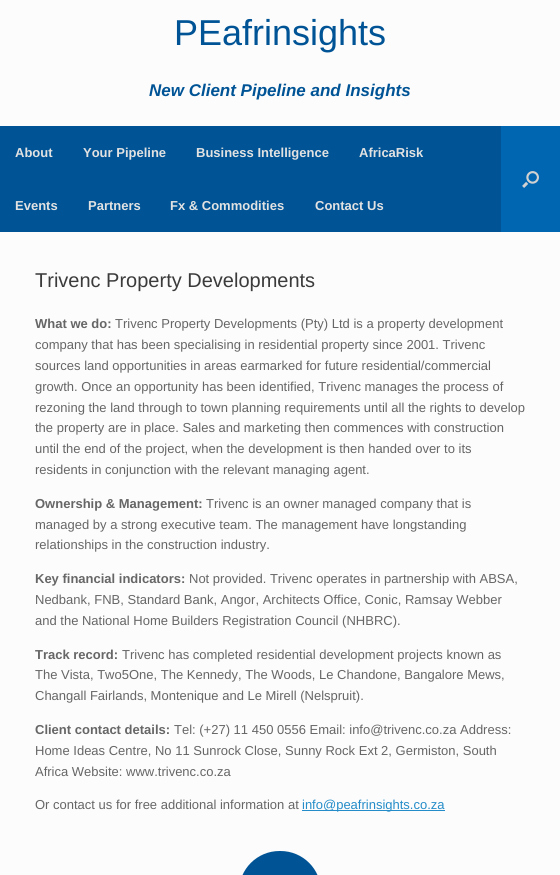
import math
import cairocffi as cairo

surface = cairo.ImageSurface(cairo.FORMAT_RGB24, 560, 875)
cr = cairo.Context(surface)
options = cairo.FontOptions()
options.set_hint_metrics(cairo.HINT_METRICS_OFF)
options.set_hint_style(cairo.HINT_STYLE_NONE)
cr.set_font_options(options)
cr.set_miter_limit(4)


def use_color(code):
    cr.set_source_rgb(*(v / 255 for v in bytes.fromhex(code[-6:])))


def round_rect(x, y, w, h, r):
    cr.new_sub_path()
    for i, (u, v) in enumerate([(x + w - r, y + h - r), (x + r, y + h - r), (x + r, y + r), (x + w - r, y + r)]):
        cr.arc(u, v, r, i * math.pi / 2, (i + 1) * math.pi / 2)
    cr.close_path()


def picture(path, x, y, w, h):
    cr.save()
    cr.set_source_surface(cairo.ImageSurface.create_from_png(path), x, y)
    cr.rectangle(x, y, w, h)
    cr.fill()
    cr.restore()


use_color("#fcfcfc")
cr.paint()
cr.select_font_face("Liberation Sans")
cr.set_font_size(36)
use_color("#005496")
cr.move_to(174, 45)
cr.show_text("PEafrinsights")
cr.select_font_face("Liberation Sans", cairo.FONT_SLANT_ITALIC, cairo.FONT_WEIGHT_BOLD)
cr.set_font_size(17)
cr.move_to(149, 96)
cr.show_text("New Client Pipeline and Insights")
cr.rectangle(0, 126, 501, 106)
cr.fill()
cr.select_font_face("Liberation Sans", cairo.FONT_SLANT_NORMAL, cairo.FONT_WEIGHT_BOLD)
cr.set_font_size(13)
use_color("#e2e2e2")
cr.move_to(15, 157)
cr.show_text("About")
cr.move_to(83, 157)
cr.show_text("Your Pipeline")
cr.move_to(196, 157)
cr.show_text("Business Intelligence")
cr.move_to(359, 157)
cr.show_text("AfricaRisk")
cr.move_to(15, 210)
cr.show_text("Events")
cr.move_to(88, 210)
cr.show_text("Partners")
cr.move_to(170, 210)
cr.show_text("Fx & Commodities")
cr.move_to(315, 210)
cr.show_text("Contact Us")
use_color("#0066b2")
cr.rectangle(501, 126, 59, 106)
cr.fill()
picture("img1.png", 522, 171, 17, 17)
cr.select_font_face("Liberation Sans")
cr.set_font_size(20)
use_color("#3b3b3b")
cr.move_to(35, 287)
cr.show_text("Trivenc Property Developments")
cr.select_font_face("Liberation Sans", cairo.FONT_SLANT_NORMAL, cairo.FONT_WEIGHT_BOLD)
cr.set_font_size(13)
use_color("#666666")
cr.move_to(35, 328)
cr.show_text("What we do:")
cr.select_font_face("Liberation Sans")
cr.move_to(115, 328)
cr.show_text("Trivenc Property Developments (Pty) Ltd is a property development")
cr.move_to(35, 349)
cr.show_text("company that has been specialising in residential property since 2001. Trivenc")
cr.move_to(35, 370)
cr.show_text("sources land opportunities in areas earmarked for future residential/commercial")
cr.move_to(35, 391)
cr.show_text("growth. Once an opportunity has been identified, Trivenc manages the process of")
cr.move_to(35, 412)
cr.show_text("rezoning the land through to town planning requirements until all the rights to develop")
cr.move_to(35, 432)
cr.show_text("the property are in place. Sales and marketing then commences with construction")
cr.move_to(35, 453)
cr.show_text("until the end of the project, when the development is then handed over to its")
cr.move_to(35, 474)
cr.show_text("residents in conjunction with the relevant managing agent.")
cr.select_font_face("Liberation Sans", cairo.FONT_SLANT_NORMAL, cairo.FONT_WEIGHT_BOLD)
cr.move_to(35, 508)
cr.show_text("Ownership & Management:")
cr.select_font_face("Liberation Sans")
cr.move_to(206, 508)
cr.show_text("Trivenc is an owner managed company that is")
cr.move_to(35, 529)
cr.show_text("managed by a strong executive team. The management have longstanding")
cr.move_to(35, 549)
cr.show_text("relationships in the construction industry.")
cr.select_font_face("Liberation Sans", cairo.FONT_SLANT_NORMAL, cairo.FONT_WEIGHT_BOLD)
cr.move_to(35, 583)
cr.show_text("Key financial indicators:")
cr.select_font_face("Liberation Sans")
cr.move_to(189, 583)
cr.show_text("Not provided. Trivenc operates in partnership with ABSA,")
cr.move_to(35, 604)
cr.show_text("Nedbank, FNB, Standard Bank, Angor, Architects Office, Conic, Ramsay Webber")
cr.move_to(35, 625)
cr.show_text("and the National Home Builders Registration Council (NHBRC).")
cr.select_font_face("Liberation Sans", cairo.FONT_SLANT_NORMAL, cairo.FONT_WEIGHT_BOLD)
cr.move_to(35, 659)
cr.show_text("Track record:")
cr.select_font_face("Liberation Sans")
cr.move_to(122, 659)
cr.show_text("Trivenc has completed residential development projects known as")
cr.move_to(35, 679)
cr.show_text("The Vista, Two5One, The Kennedy, The Woods, Le Chandone, Bangalore Mews,")
cr.move_to(35, 700)
cr.show_text("Changall Fairlands, Montenique and Le Mirell (Nelspruit).")
cr.select_font_face("Liberation Sans", cairo.FONT_SLANT_NORMAL, cairo.FONT_WEIGHT_BOLD)
cr.move_to(35, 734)
cr.show_text("Client contact details:")
cr.select_font_face("Liberation Sans")
cr.move_to(174, 734)
cr.show_text("Tel: (+27) 11 450 0556 Email: info@trivenc.co.za Address:")
cr.move_to(35, 755)
cr.show_text("Home Ideas Centre, No 11 Sunrock Close, Sunny Rock Ext 2, Germiston, South")
cr.move_to(35, 776)
cr.show_text("Africa Website: www.trivenc.co.za")
cr.move_to(35, 809)
cr.show_text("Or contact us for free additional information at")
use_color("#248cc8")
cr.rectangle(302, 810, 143, 1)
cr.fill()
cr.move_to(302, 809)
cr.show_text("info@peafrinsights.co.za")
use_color("#005496")
round_rect(239, 851, 82, 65, 40.5)
cr.fill()
surface.write_to_png("result.png")
